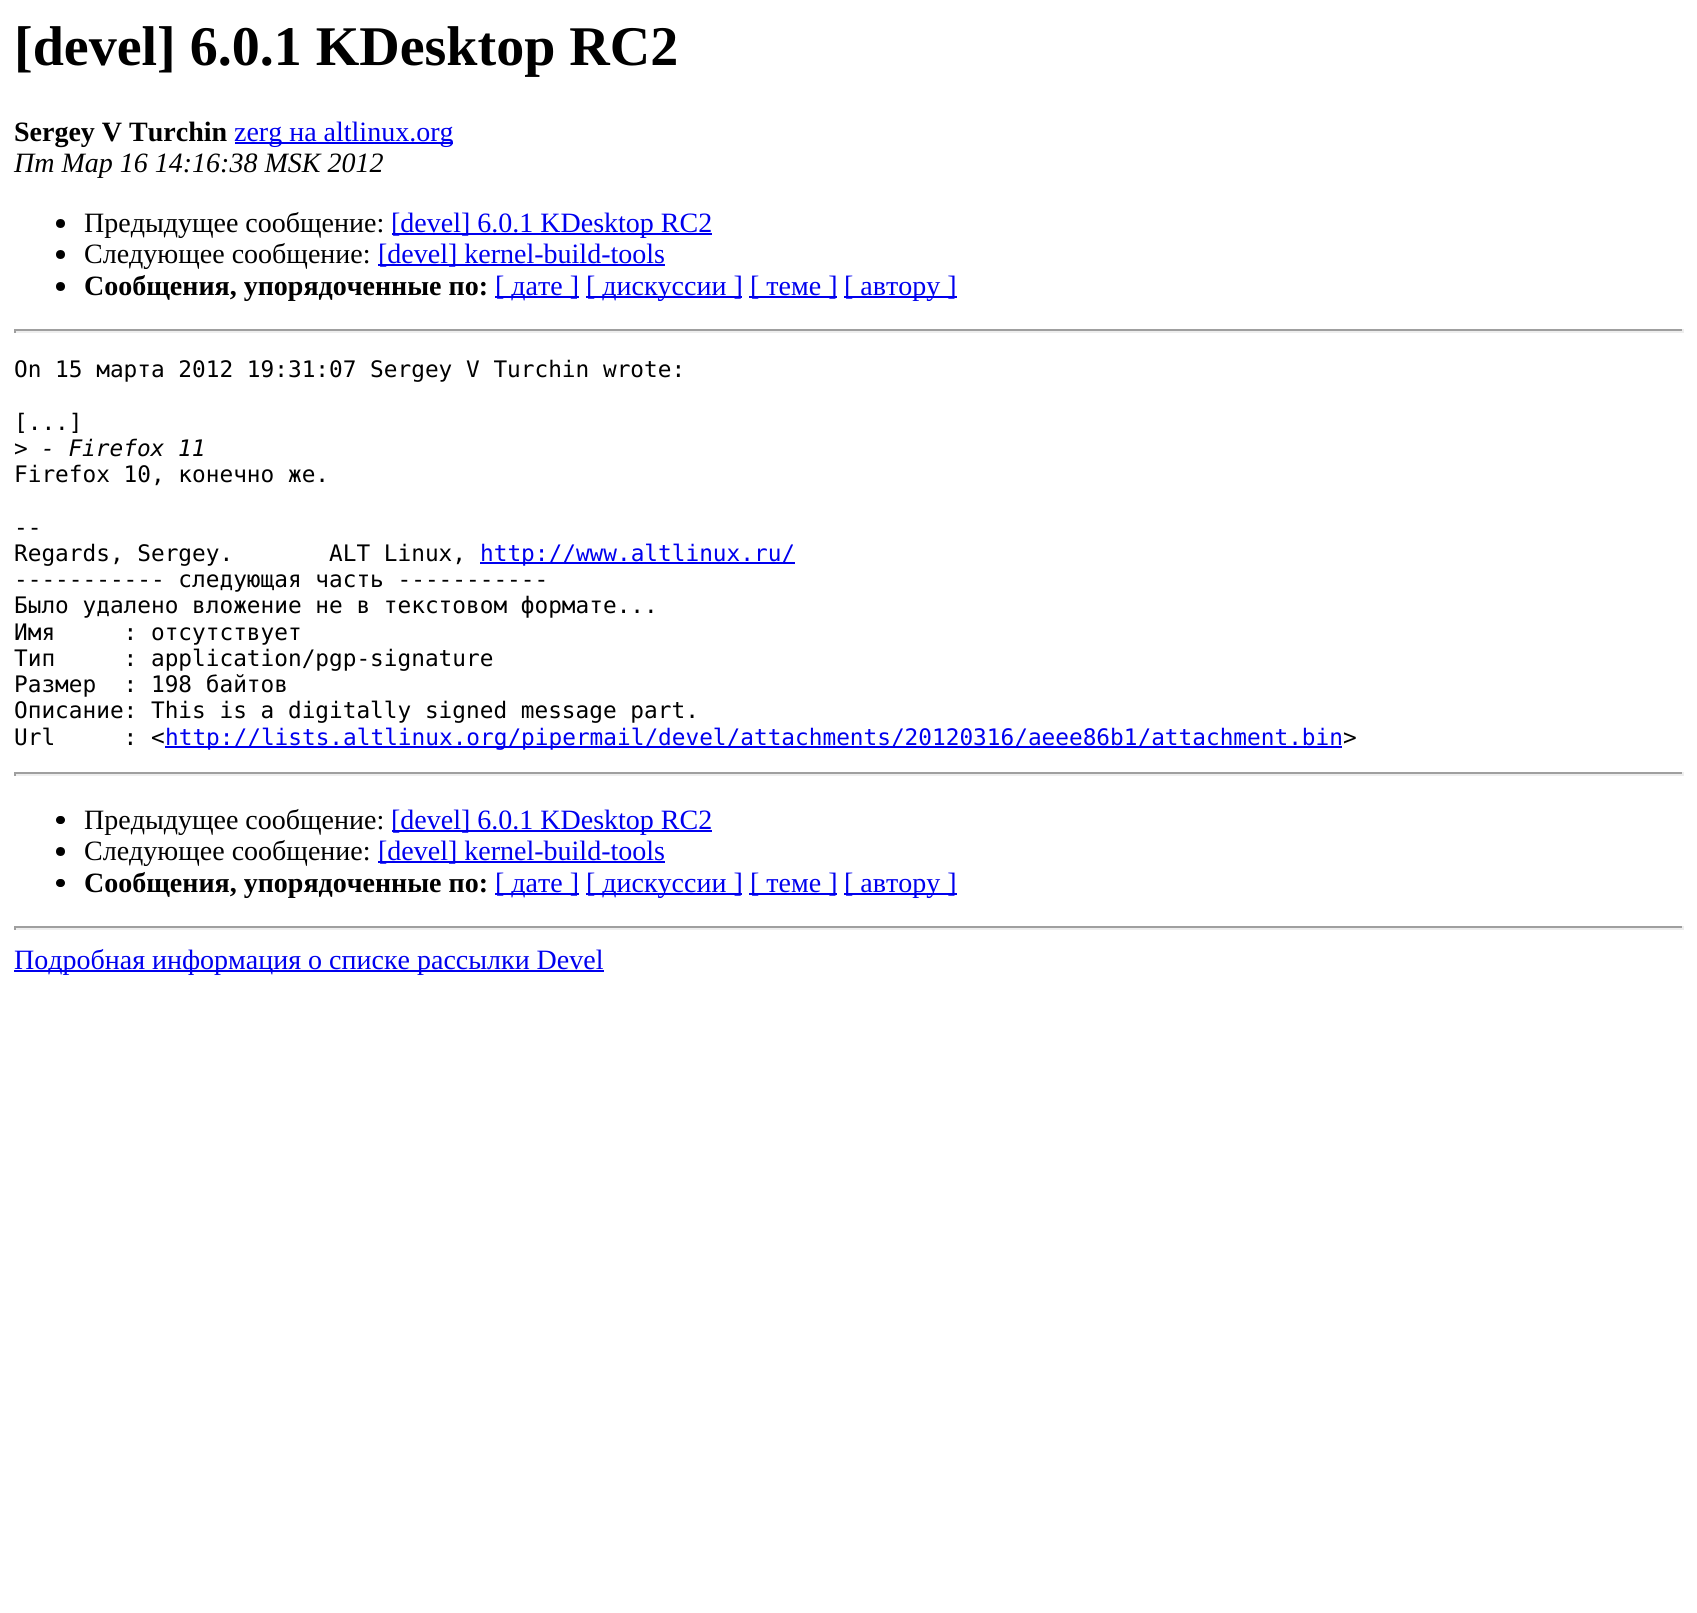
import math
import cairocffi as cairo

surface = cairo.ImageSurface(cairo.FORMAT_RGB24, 1697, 1613)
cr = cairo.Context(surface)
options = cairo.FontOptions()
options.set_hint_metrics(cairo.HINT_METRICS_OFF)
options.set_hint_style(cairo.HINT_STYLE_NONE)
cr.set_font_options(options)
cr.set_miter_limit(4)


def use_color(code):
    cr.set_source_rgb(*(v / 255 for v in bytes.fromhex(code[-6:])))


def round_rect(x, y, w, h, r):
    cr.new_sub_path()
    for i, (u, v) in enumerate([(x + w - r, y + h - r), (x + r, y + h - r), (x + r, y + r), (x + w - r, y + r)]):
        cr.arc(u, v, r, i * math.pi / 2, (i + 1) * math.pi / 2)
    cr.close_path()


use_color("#ffffff")
cr.paint()
cr.select_font_face("Liberation Serif", cairo.FONT_SLANT_NORMAL, cairo.FONT_WEIGHT_BOLD)
cr.set_font_size(56)
use_color("#000000")
cr.move_to(14, 65)
cr.show_text("[devel] 6.0.1 KDesktop RC2")
cr.set_font_size(28)
cr.move_to(14, 141)
cr.show_text("Sergey V Turchin")
use_color("#0000ee")
cr.rectangle(235, 142, 218, 2)
cr.fill()
cr.select_font_face("Liberation Serif")
cr.move_to(234, 141)
cr.show_text("zerg на altlinux.org")
cr.select_font_face("Liberation Serif", cairo.FONT_SLANT_ITALIC)
use_color("#000000")
cr.move_to(14, 172)
cr.show_text("Пт Мар 16 14:16:38 MSK 2012")
cr.new_path()
cr.arc(60.5, 223.5, 4.5, 0, 2 * math.pi)
cr.fill()
cr.select_font_face("Liberation Serif")
cr.move_to(84, 232)
cr.show_text("Предыдущее сообщение:")
use_color("#0000ee")
cr.rectangle(392, 233, 320, 2)
cr.fill()
cr.move_to(391, 232)
cr.show_text("[devel] 6.0.1 KDesktop RC2")
use_color("#000000")
cr.new_path()
cr.arc(60.5, 254.5, 4.5, 0, 2 * math.pi)
cr.fill()
cr.move_to(84, 263)
cr.show_text("Следующее сообщение:")
use_color("#0000ee")
cr.rectangle(378, 264, 287, 2)
cr.fill()
cr.move_to(378, 263)
cr.show_text("[devel] kernel-build-tools")
use_color("#000000")
cr.new_path()
cr.arc(60.5, 286.5, 4.5, 0, 2 * math.pi)
cr.fill()
cr.select_font_face("Liberation Serif", cairo.FONT_SLANT_NORMAL, cairo.FONT_WEIGHT_BOLD)
cr.move_to(84, 295)
cr.show_text("Сообщения, упорядоченные по:")
use_color("#0000ee")
cr.rectangle(495, 296, 84, 2)
cr.fill()
cr.select_font_face("Liberation Serif")
cr.move_to(495, 295)
cr.show_text("[ дате ]")
cr.rectangle(586, 296, 156, 2)
cr.fill()
cr.move_to(586, 295)
cr.show_text("[ дискуссии ]")
cr.rectangle(749, 296, 88, 2)
cr.fill()
cr.move_to(750, 295)
cr.show_text("[ теме ]")
cr.rectangle(844, 296, 113, 2)
cr.fill()
cr.move_to(844, 295)
cr.show_text("[ автору ]")
use_color("#9f9f9f")
cr.rectangle(14, 329, 1670, 2)
cr.fill()
use_color("#eeeeee")
cr.rectangle(1682, 329, 2, 4)
cr.fill()
cr.rectangle(14, 331, 1670, 2)
cr.fill()
use_color("#9f9f9f")
cr.rectangle(14, 329, 2, 4)
cr.fill()
cr.select_font_face("DejaVu Sans Mono")
cr.set_font_size(22.75)
use_color("#000000")
cr.move_to(14, 377)
cr.show_text("On 15 марта 2012 19:31:07 Sergey V Turchin wrote:")
cr.move_to(14, 430)
cr.show_text("[...]")
cr.move_to(14, 456)
cr.show_text(">")
cr.select_font_face("DejaVu Sans Mono", cairo.FONT_SLANT_ITALIC)
cr.move_to(41, 456)
cr.show_text("- Firefox 11")
cr.select_font_face("DejaVu Sans Mono")
cr.move_to(14, 482)
cr.show_text("Firefox 10, конечно же.")
cr.move_to(14, 535)
cr.show_text("--")
cr.move_to(14, 561)
cr.show_text("Regards, Sergey.       ALT Linux,")
use_color("#0000ee")
cr.rectangle(480, 562, 315, 2)
cr.fill()
cr.move_to(480, 561)
cr.show_text("http://www.altlinux.ru/")
use_color("#000000")
cr.move_to(14, 587)
cr.show_text("----------- следующая часть -----------")
cr.move_to(14, 613)
cr.show_text("Было удалено вложение не в текстовом формате...")
cr.move_to(14, 640)
cr.show_text("Имя     : отсутствует")
cr.move_to(14, 666)
cr.show_text("Тип     : application/pgp-signature")
cr.move_to(14, 692)
cr.show_text("Размер  : 198 байтов")
cr.move_to(14, 718)
cr.show_text("Описание: This is a digitally signed message part.")
cr.move_to(14, 745)
cr.show_text("Url     : <")
use_color("#0000ee")
cr.rectangle(165, 746, 1177, 2)
cr.fill()
cr.move_to(165, 745)
cr.show_text("http://lists.altlinux.org/pipermail/devel/attachments/20120316/aeee86b1/attachment.bin")
use_color("#000000")
cr.move_to(1343, 745)
cr.show_text(">")
use_color("#9f9f9f")
cr.rectangle(14, 772, 1670, 2)
cr.fill()
use_color("#eeeeee")
cr.rectangle(1682, 772, 2, 4)
cr.fill()
cr.rectangle(14, 774, 1670, 2)
cr.fill()
use_color("#9f9f9f")
cr.rectangle(14, 772, 2, 4)
cr.fill()
use_color("#000000")
round_rect(56, 816, 9, 8, 4)
cr.fill()
cr.select_font_face("Liberation Serif")
cr.set_font_size(28)
cr.move_to(84, 829)
cr.show_text("Предыдущее сообщение:")
use_color("#0000ee")
cr.rectangle(392, 830, 320, 2)
cr.fill()
cr.move_to(391, 829)
cr.show_text("[devel] 6.0.1 KDesktop RC2")
use_color("#000000")
cr.new_path()
cr.arc(60.5, 851.5, 4.5, 0, 2 * math.pi)
cr.fill()
cr.move_to(84, 860)
cr.show_text("Следующее сообщение:")
use_color("#0000ee")
cr.rectangle(378, 861, 287, 2)
cr.fill()
cr.move_to(378, 860)
cr.show_text("[devel] kernel-build-tools")
use_color("#000000")
round_rect(56, 879, 9, 8, 4)
cr.fill()
cr.select_font_face("Liberation Serif", cairo.FONT_SLANT_NORMAL, cairo.FONT_WEIGHT_BOLD)
cr.move_to(84, 892)
cr.show_text("Сообщения, упорядоченные по:")
use_color("#0000ee")
cr.rectangle(495, 893, 84, 2)
cr.fill()
cr.select_font_face("Liberation Serif")
cr.move_to(495, 892)
cr.show_text("[ дате ]")
cr.rectangle(586, 893, 156, 2)
cr.fill()
cr.move_to(586, 892)
cr.show_text("[ дискуссии ]")
cr.rectangle(749, 893, 88, 2)
cr.fill()
cr.move_to(750, 892)
cr.show_text("[ теме ]")
cr.rectangle(844, 893, 113, 2)
cr.fill()
cr.move_to(844, 892)
cr.show_text("[ автору ]")
use_color("#9f9f9f")
cr.rectangle(14, 926, 1670, 2)
cr.fill()
use_color("#eeeeee")
cr.rectangle(1682, 926, 2, 4)
cr.fill()
cr.rectangle(14, 928, 1670, 2)
cr.fill()
use_color("#9f9f9f")
cr.rectangle(14, 926, 2, 4)
cr.fill()
use_color("#0000ee")
cr.rectangle(14, 970, 590, 2)
cr.fill()
cr.move_to(14, 969)
cr.show_text("Подробная информация о списке рассылки Devel")
surface.write_to_png("result.png")
